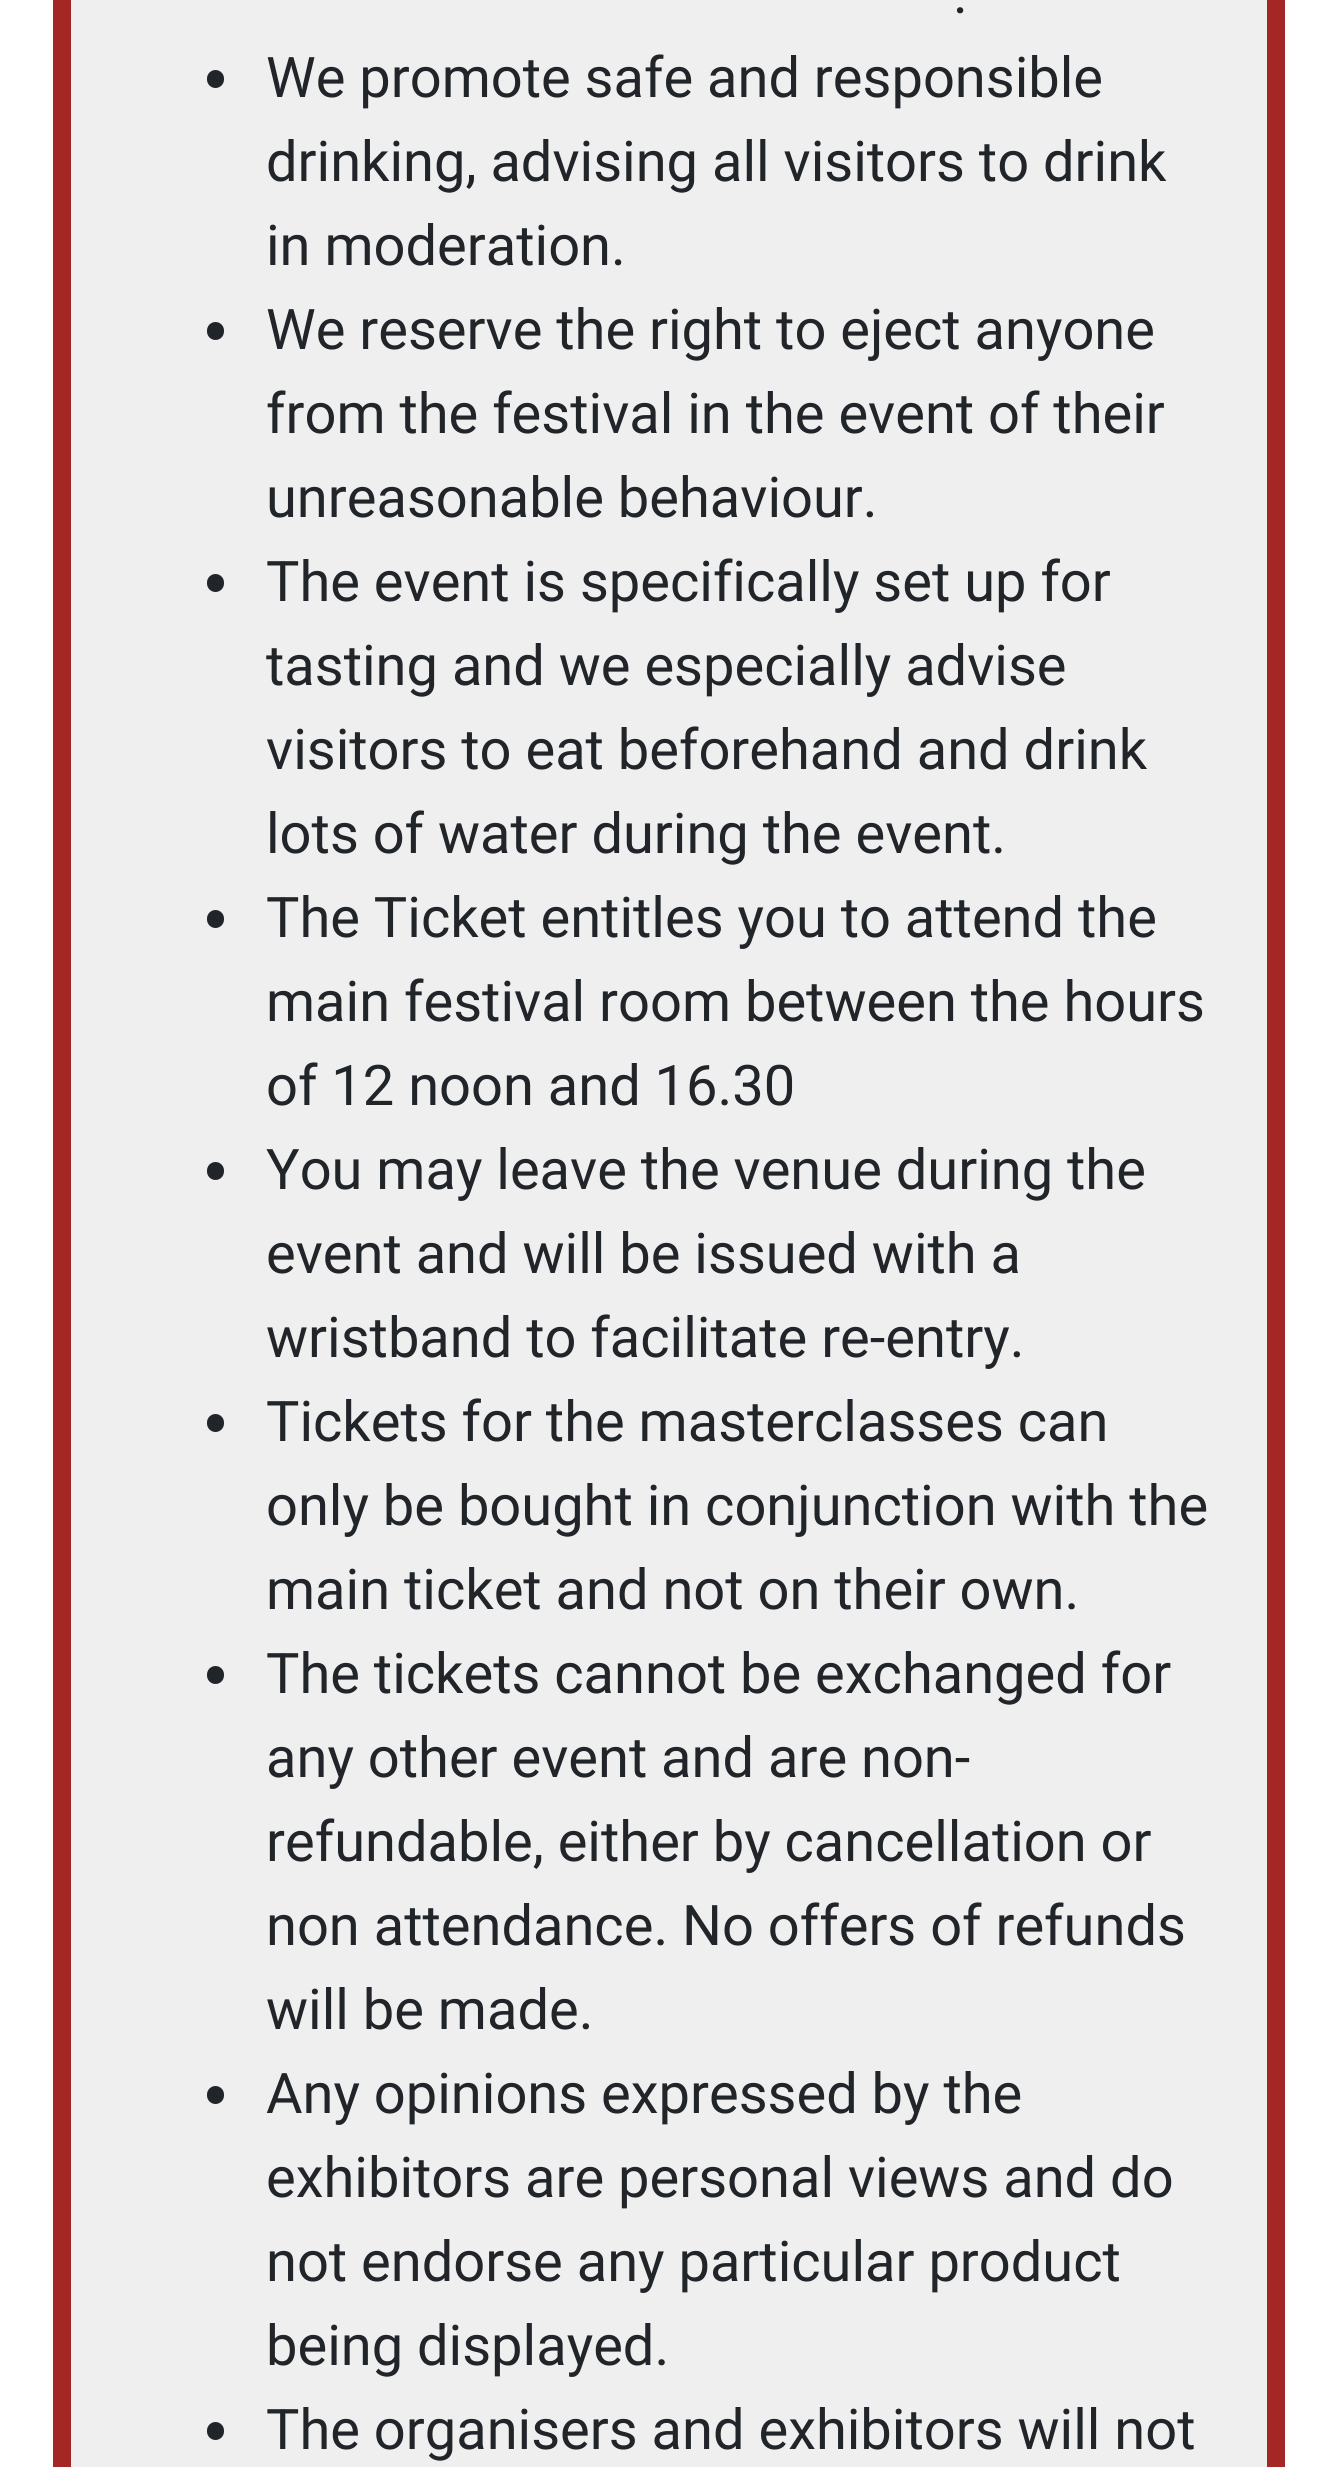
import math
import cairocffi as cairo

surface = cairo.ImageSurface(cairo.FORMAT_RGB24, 1337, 2467)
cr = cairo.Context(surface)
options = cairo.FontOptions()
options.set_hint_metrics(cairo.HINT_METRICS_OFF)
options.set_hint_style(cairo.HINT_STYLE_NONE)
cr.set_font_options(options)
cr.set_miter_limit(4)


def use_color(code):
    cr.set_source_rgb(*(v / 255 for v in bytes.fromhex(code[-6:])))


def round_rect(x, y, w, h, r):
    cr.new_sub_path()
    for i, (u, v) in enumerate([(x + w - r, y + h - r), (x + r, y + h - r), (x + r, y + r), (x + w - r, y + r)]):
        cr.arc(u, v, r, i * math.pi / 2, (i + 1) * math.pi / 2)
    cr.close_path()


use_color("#ffffff")
cr.paint()
use_color("#efefef")
cr.rectangle(62, -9, 1214, 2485)
cr.fill_preserve()
use_color("#a42726")
cr.set_line_width(18)
cr.stroke()
cr.select_font_face("Roboto")
cr.set_font_size(56)
use_color("#212529")
cr.move_to(953, 13)
cr.show_text(".")
round_rect(207, 70, 17, 18, 8.5)
cr.fill()
cr.move_to(266, 97)
cr.show_text("We promote safe and responsible")
cr.move_to(266, 181)
cr.show_text("drinking, advising all visitors to drink")
cr.move_to(266, 265)
cr.show_text("in moderation.")
round_rect(207, 322, 17, 18, 8.5)
cr.fill()
cr.move_to(266, 349)
cr.show_text("We reserve the right to eject anyone")
cr.move_to(266, 433)
cr.show_text("from the festival in the event of their")
cr.move_to(266, 517)
cr.show_text("unreasonable behaviour.")
round_rect(207, 574, 17, 18, 8.5)
cr.fill()
cr.move_to(266, 601)
cr.show_text("The event is specifically set up for")
cr.move_to(266, 685)
cr.show_text("tasting and we especially advise")
cr.move_to(266, 769)
cr.show_text("visitors to eat beforehand and drink")
cr.move_to(266, 853)
cr.show_text("lots of water during the event.")
round_rect(207, 910, 17, 18, 8.5)
cr.fill()
cr.move_to(266, 937)
cr.show_text("The Ticket entitles you to attend the")
cr.move_to(266, 1021)
cr.show_text("main festival room between the hours")
cr.move_to(266, 1105)
cr.show_text("of 12 noon and 16.30")
round_rect(207, 1162, 17, 18, 8.5)
cr.fill()
cr.move_to(266, 1189)
cr.show_text("You may leave the venue during the")
cr.move_to(266, 1273)
cr.show_text("event and will be issued with a")
cr.move_to(266, 1357)
cr.show_text("wristband to facilitate re-entry.")
round_rect(207, 1414, 17, 18, 8.5)
cr.fill()
cr.move_to(266, 1441)
cr.show_text("Tickets for the masterclasses can")
cr.move_to(266, 1525)
cr.show_text("only be bought in conjunction with the")
cr.move_to(266, 1609)
cr.show_text("main ticket and not on their own.")
round_rect(207, 1666, 17, 18, 8.5)
cr.fill()
cr.move_to(266, 1693)
cr.show_text("The tickets cannot be exchanged for")
cr.move_to(266, 1777)
cr.show_text("any other event and are non-")
cr.move_to(266, 1861)
cr.show_text("refundable, either by cancellation or")
cr.move_to(266, 1945)
cr.show_text("non attendance. No offers of refunds")
cr.move_to(266, 2029)
cr.show_text("will be made.")
round_rect(207, 2086, 17, 18, 8.5)
cr.fill()
cr.move_to(266, 2113)
cr.show_text("Any opinions expressed by the")
cr.move_to(266, 2197)
cr.show_text("exhibitors are personal views and do")
cr.move_to(266, 2281)
cr.show_text("not endorse any particular product")
cr.move_to(266, 2365)
cr.show_text("being displayed.")
round_rect(207, 2422, 17, 18, 8.5)
cr.fill()
cr.move_to(266, 2449)
cr.show_text("The organisers and exhibitors will not")
surface.write_to_png("result.png")
